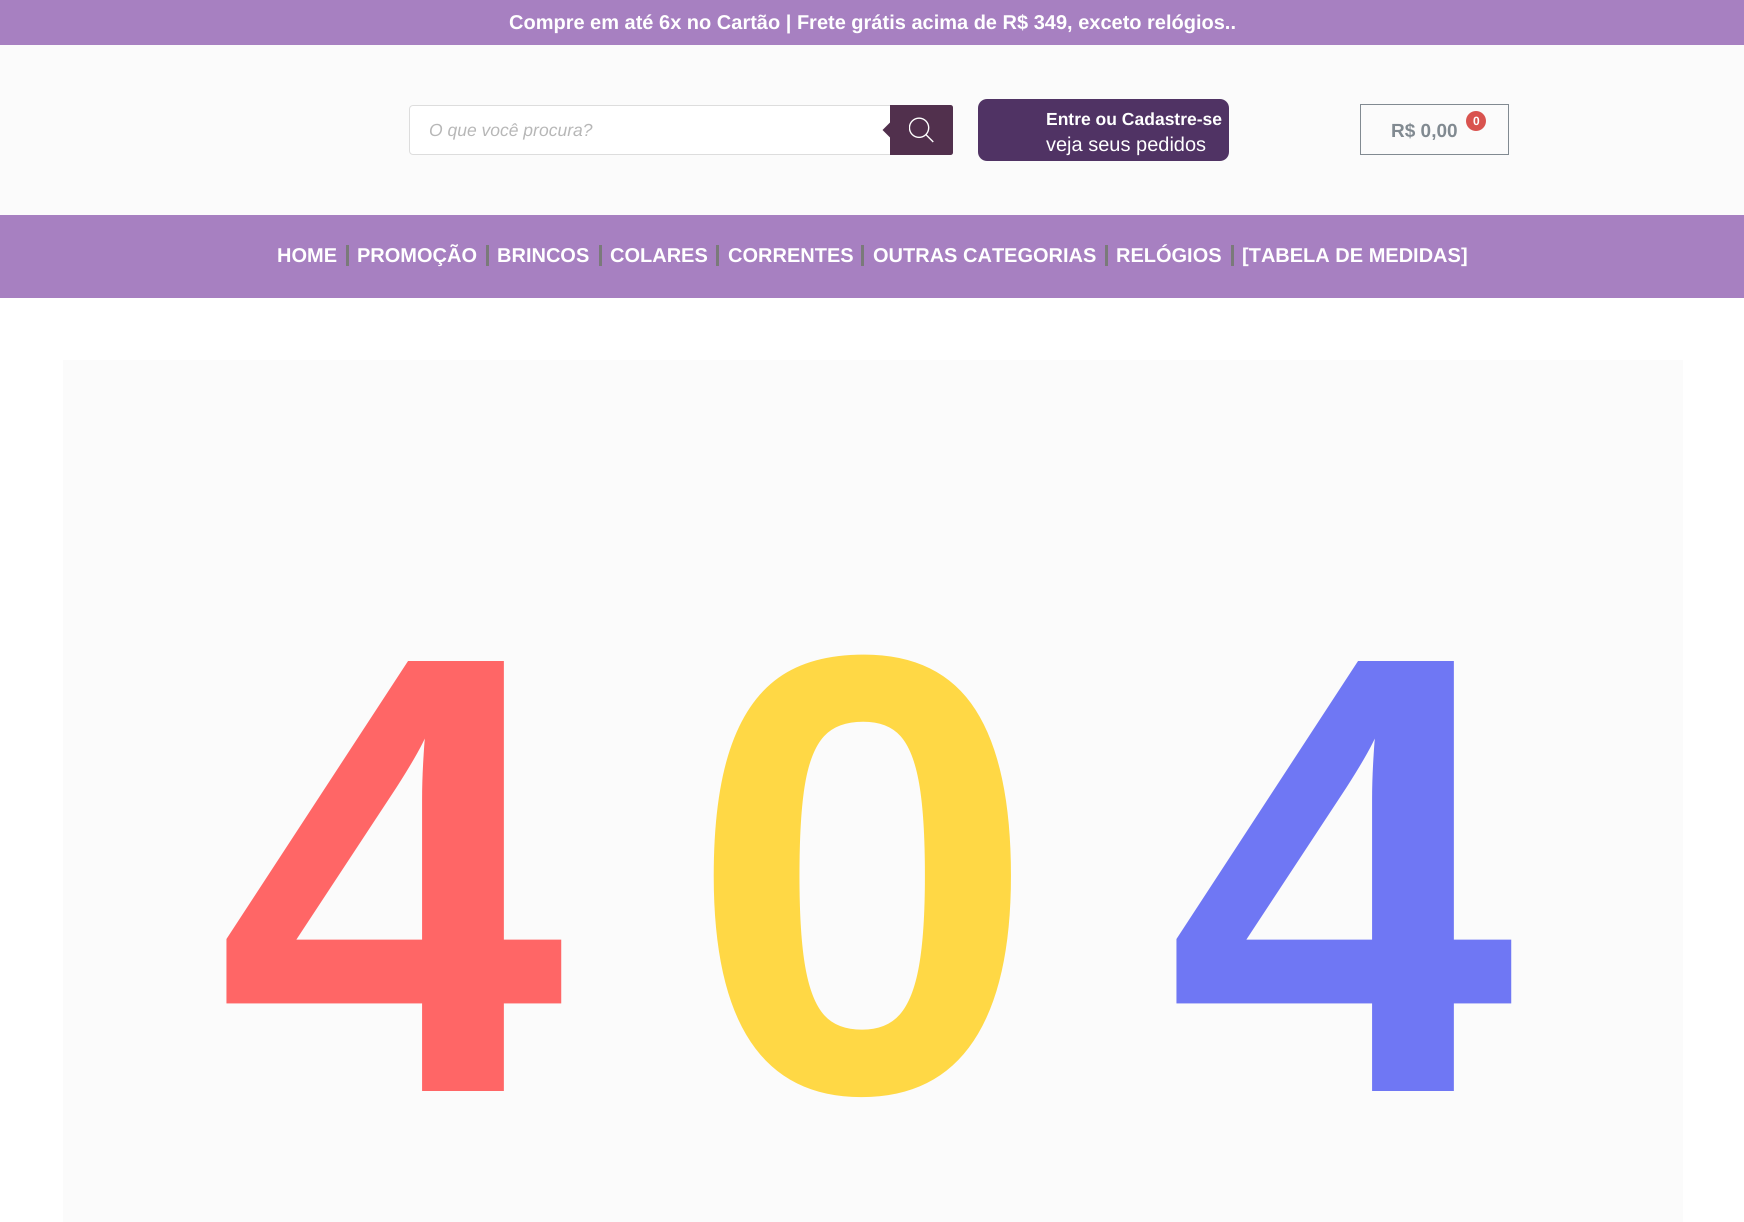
import math
import cairocffi as cairo

surface = cairo.ImageSurface(cairo.FORMAT_RGB24, 1744, 1222)
cr = cairo.Context(surface)
options = cairo.FontOptions()
options.set_hint_metrics(cairo.HINT_METRICS_OFF)
options.set_hint_style(cairo.HINT_STYLE_NONE)
cr.set_font_options(options)
cr.set_miter_limit(4)


def use_color(code):
    cr.set_source_rgb(*(v / 255 for v in bytes.fromhex(code[-6:])))


def round_rect(x, y, w, h, r):
    cr.new_sub_path()
    for i, (u, v) in enumerate([(x + w - r, y + h - r), (x + r, y + h - r), (x + r, y + r), (x + w - r, y + r)]):
        cr.arc(u, v, r, i * math.pi / 2, (i + 1) * math.pi / 2)
    cr.close_path()


def picture(path, x, y, w, h):
    cr.save()
    cr.set_source_surface(cairo.ImageSurface.create_from_png(path), x, y)
    cr.rectangle(x, y, w, h)
    cr.fill()
    cr.restore()


use_color("#fbfbfb")
cr.paint()
use_color("#a780c1")
cr.rectangle(0, 0, 1744, 45)
cr.fill()
cr.select_font_face("Liberation Sans", cairo.FONT_SLANT_NORMAL, cairo.FONT_WEIGHT_BOLD)
cr.set_font_size(20)
use_color("#ffffff")
cr.move_to(509, 29)
cr.show_text("Compre em até 6x no Cartão | Frete grátis acima de R$ 349, exceto relógios..")
round_rect(409.5, 105.5, 543, 49, 3.5)
cr.fill_preserve()
use_color("#dddddd")
cr.set_line_width(1)
cr.stroke()
cr.select_font_face("Liberation Sans", cairo.FONT_SLANT_ITALIC)
cr.set_font_size(17.5)
use_color("#b7b7b7")
cr.move_to(429, 136)
cr.show_text("O que você procura?")
use_color("#51304d")
cr.new_path()
cr.move_to(890, 105)
cr.line_to(950.5, 105)
cr.curve_to(952, 105, 953, 106, 953, 107.5)
cr.line_to(953, 152.5)
cr.curve_to(953, 154, 952, 155, 950.5, 155)
cr.line_to(890, 155)
cr.close_path()
cr.fill()
cr.new_path()
cr.move_to(892.5, 120)
cr.line_to(892.5, 140)
cr.line_to(882.5, 130)
cr.close_path()
cr.fill()
picture("img1.png", 909, 117, 25, 26)
use_color("#503364")
round_rect(978, 99, 251, 62, 9)
cr.fill()
cr.select_font_face("Liberation Sans", cairo.FONT_SLANT_NORMAL, cairo.FONT_WEIGHT_BOLD)
use_color("#ffffff")
cr.move_to(1046, 125)
cr.show_text("Entre ou Cadastre-se")
cr.select_font_face("Liberation Sans")
cr.set_font_size(20)
cr.move_to(1046, 151)
cr.show_text("veja seus pedidos")
cr.rectangle(1360.5, 104.5, 148, 50)
use_color("#818a91")
cr.stroke()
use_color("#d9534f")
cr.arc(1476, 121, 10, 0, 2 * math.pi)
cr.fill()
cr.select_font_face("Liberation Sans", cairo.FONT_SLANT_NORMAL, cairo.FONT_WEIGHT_BOLD)
cr.set_font_size(12)
use_color("#ffffff")
cr.move_to(1473, 125)
cr.show_text("0")
cr.set_font_size(19)
use_color("#818a91")
cr.move_to(1391, 137)
cr.show_text("R$ 0,00")
use_color("#a780c1")
cr.rectangle(0, 215, 1744, 83)
cr.fill()
cr.set_font_size(20)
use_color("#ffffff")
cr.move_to(277, 262)
cr.show_text("HOME")
use_color("#7a7a7a")
cr.rectangle(346, 245, 3, 21)
cr.fill()
use_color("#ffffff")
cr.move_to(357, 262)
cr.show_text("PROMOÇÃO")
use_color("#7a7a7a")
cr.rectangle(486, 245, 3, 21)
cr.fill()
use_color("#ffffff")
cr.move_to(497, 262)
cr.show_text("BRINCOS")
use_color("#7a7a7a")
cr.rectangle(599, 245, 3, 21)
cr.fill()
use_color("#ffffff")
cr.move_to(610, 262)
cr.show_text("COLARES")
use_color("#7a7a7a")
cr.rectangle(716, 245, 3, 21)
cr.fill()
use_color("#ffffff")
cr.move_to(728, 262)
cr.show_text("CORRENTES")
use_color("#7a7a7a")
cr.rectangle(861, 245, 3, 21)
cr.fill()
use_color("#ffffff")
cr.move_to(873, 262)
cr.show_text("OUTRAS CATEGORIAS")
use_color("#7a7a7a")
cr.rectangle(1105, 245, 3, 21)
cr.fill()
use_color("#ffffff")
cr.move_to(1116, 262)
cr.show_text("RELÓGIOS")
use_color("#7a7a7a")
cr.rectangle(1231, 245, 3, 21)
cr.fill()
use_color("#ffffff")
cr.move_to(1242, 262)
cr.show_text("[TABELA DE MEDIDAS]")
cr.rectangle(63, 298, 1620, 62)
cr.fill()
cr.rectangle(1683, 298, 61, 924)
cr.fill()
cr.rectangle(0, 298, 63, 924)
cr.fill()
cr.set_font_size(625)
use_color("#ff6666")
cr.move_to(217, 1091)
cr.show_text("4")
use_color("#ffd845")
cr.move_to(689, 1091)
cr.show_text("0")
use_color("#6f77f4")
cr.move_to(1167, 1091)
cr.show_text("4")
surface.write_to_png("result.png")
